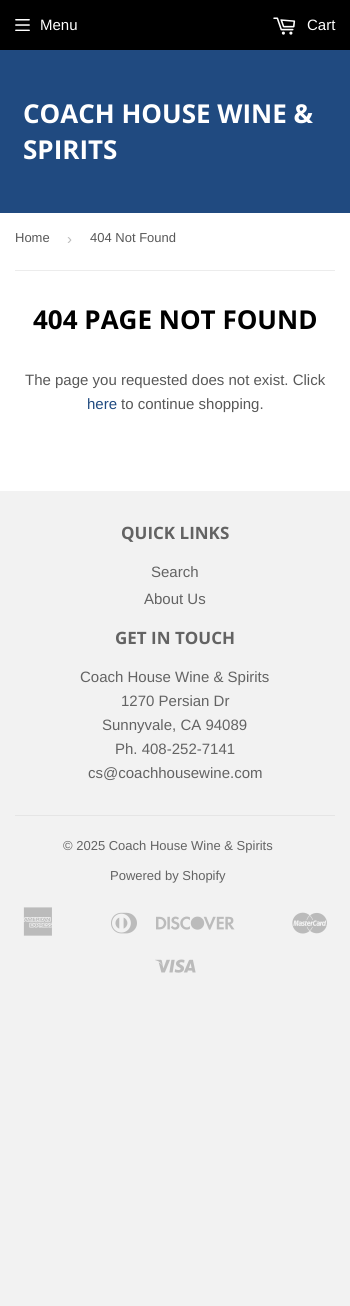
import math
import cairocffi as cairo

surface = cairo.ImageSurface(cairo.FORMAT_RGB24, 350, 1306)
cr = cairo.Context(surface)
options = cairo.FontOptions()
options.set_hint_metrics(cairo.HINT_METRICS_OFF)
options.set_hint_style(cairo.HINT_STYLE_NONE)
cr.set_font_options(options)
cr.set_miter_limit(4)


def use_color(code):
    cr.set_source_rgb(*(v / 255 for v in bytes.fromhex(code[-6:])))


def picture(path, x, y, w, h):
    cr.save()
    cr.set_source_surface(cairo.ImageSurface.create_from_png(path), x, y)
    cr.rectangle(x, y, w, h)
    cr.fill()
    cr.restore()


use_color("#f2f2f2")
cr.paint()
use_color("#ffffff")
cr.rectangle(0, 213, 350, 278)
cr.fill()
use_color("#000000")
cr.rectangle(0, 0, 350, 50)
cr.fill()
picture("img1.png", 15, 19, 15, 12)
cr.select_font_face("Liberation Sans")
cr.set_font_size(15)
use_color("#ffffff")
cr.move_to(40, 30)
cr.show_text("Menu")
picture("img2.png", 273, 17, 23, 18)
cr.move_to(307, 30)
cr.show_text("Cart")
use_color("#204a80")
cr.rectangle(0, 50, 350, 163)
cr.fill()
cr.select_font_face("Open Sans", cairo.FONT_SLANT_NORMAL, cairo.FONT_WEIGHT_BOLD)
cr.set_font_size(26)
use_color("#ffffff")
cr.move_to(23, 123)
cr.show_text("COACH HOUSE WINE &")
cr.move_to(23, 159)
cr.show_text("SPIRITS")
use_color("#ececec")
cr.rectangle(15, 270, 320, 1)
cr.fill()
cr.select_font_face("Liberation Sans")
cr.set_font_size(13)
use_color("#585858")
cr.move_to(15, 242)
cr.show_text("Home")
cr.set_font_size(15)
use_color("#bbbbbb")
cr.move_to(67, 244)
cr.show_text("›")
cr.set_font_size(13)
use_color("#585858")
cr.move_to(90, 242)
cr.show_text("404 Not Found")
cr.select_font_face("Open Sans", cairo.FONT_SLANT_NORMAL, cairo.FONT_WEIGHT_BOLD)
cr.set_font_size(26)
use_color("#000000")
cr.move_to(33, 329)
cr.show_text("404 PAGE NOT FOUND")
cr.select_font_face("Liberation Sans")
cr.set_font_size(15)
use_color("#585858")
cr.move_to(25, 385)
cr.show_text("The page you requested does not exist. Click")
use_color("#204a80")
cr.move_to(87, 409)
cr.show_text("here")
use_color("#585858")
cr.move_to(121, 409)
cr.show_text("to continue shopping.")
cr.select_font_face("Open Sans", cairo.FONT_SLANT_NORMAL, cairo.FONT_WEIGHT_BOLD)
cr.set_font_size(17)
use_color("#636363")
cr.move_to(121, 539)
cr.show_text("QUICK LINKS")
cr.select_font_face("Liberation Sans")
cr.set_font_size(15)
cr.move_to(151, 577)
cr.show_text("Search")
cr.move_to(144, 604)
cr.show_text("About Us")
cr.select_font_face("Open Sans", cairo.FONT_SLANT_NORMAL, cairo.FONT_WEIGHT_BOLD)
cr.set_font_size(17)
cr.move_to(115, 644)
cr.show_text("GET IN TOUCH")
cr.select_font_face("Liberation Sans")
cr.set_font_size(15)
cr.move_to(80, 682)
cr.show_text("Coach House Wine & Spirits")
cr.move_to(121, 706)
cr.show_text("1270 Persian Dr")
cr.move_to(102, 730)
cr.show_text("Sunnyvale, CA 94089")
cr.move_to(115, 754)
cr.show_text("Ph. 408-252-7141")
cr.move_to(88, 778)
cr.show_text("cs@coachhousewine.com")
use_color("#e5e5e5")
cr.rectangle(15, 815, 320, 1)
cr.fill()
cr.set_font_size(13)
use_color("#636363")
cr.move_to(63, 850)
cr.show_text("© 2025 Coach House Wine & Spirits")
cr.move_to(110, 880)
cr.show_text("Powered by Shopify")
picture("img3.png", 23, 907, 29, 29)
picture("img4.png", 111, 912, 26, 22)
picture("img5.png", 156, 916, 79, 14)
picture("img6.png", 292, 912, 35, 22)
picture("img7.png", 155, 959, 41, 14)
surface.write_to_png("result.png")
